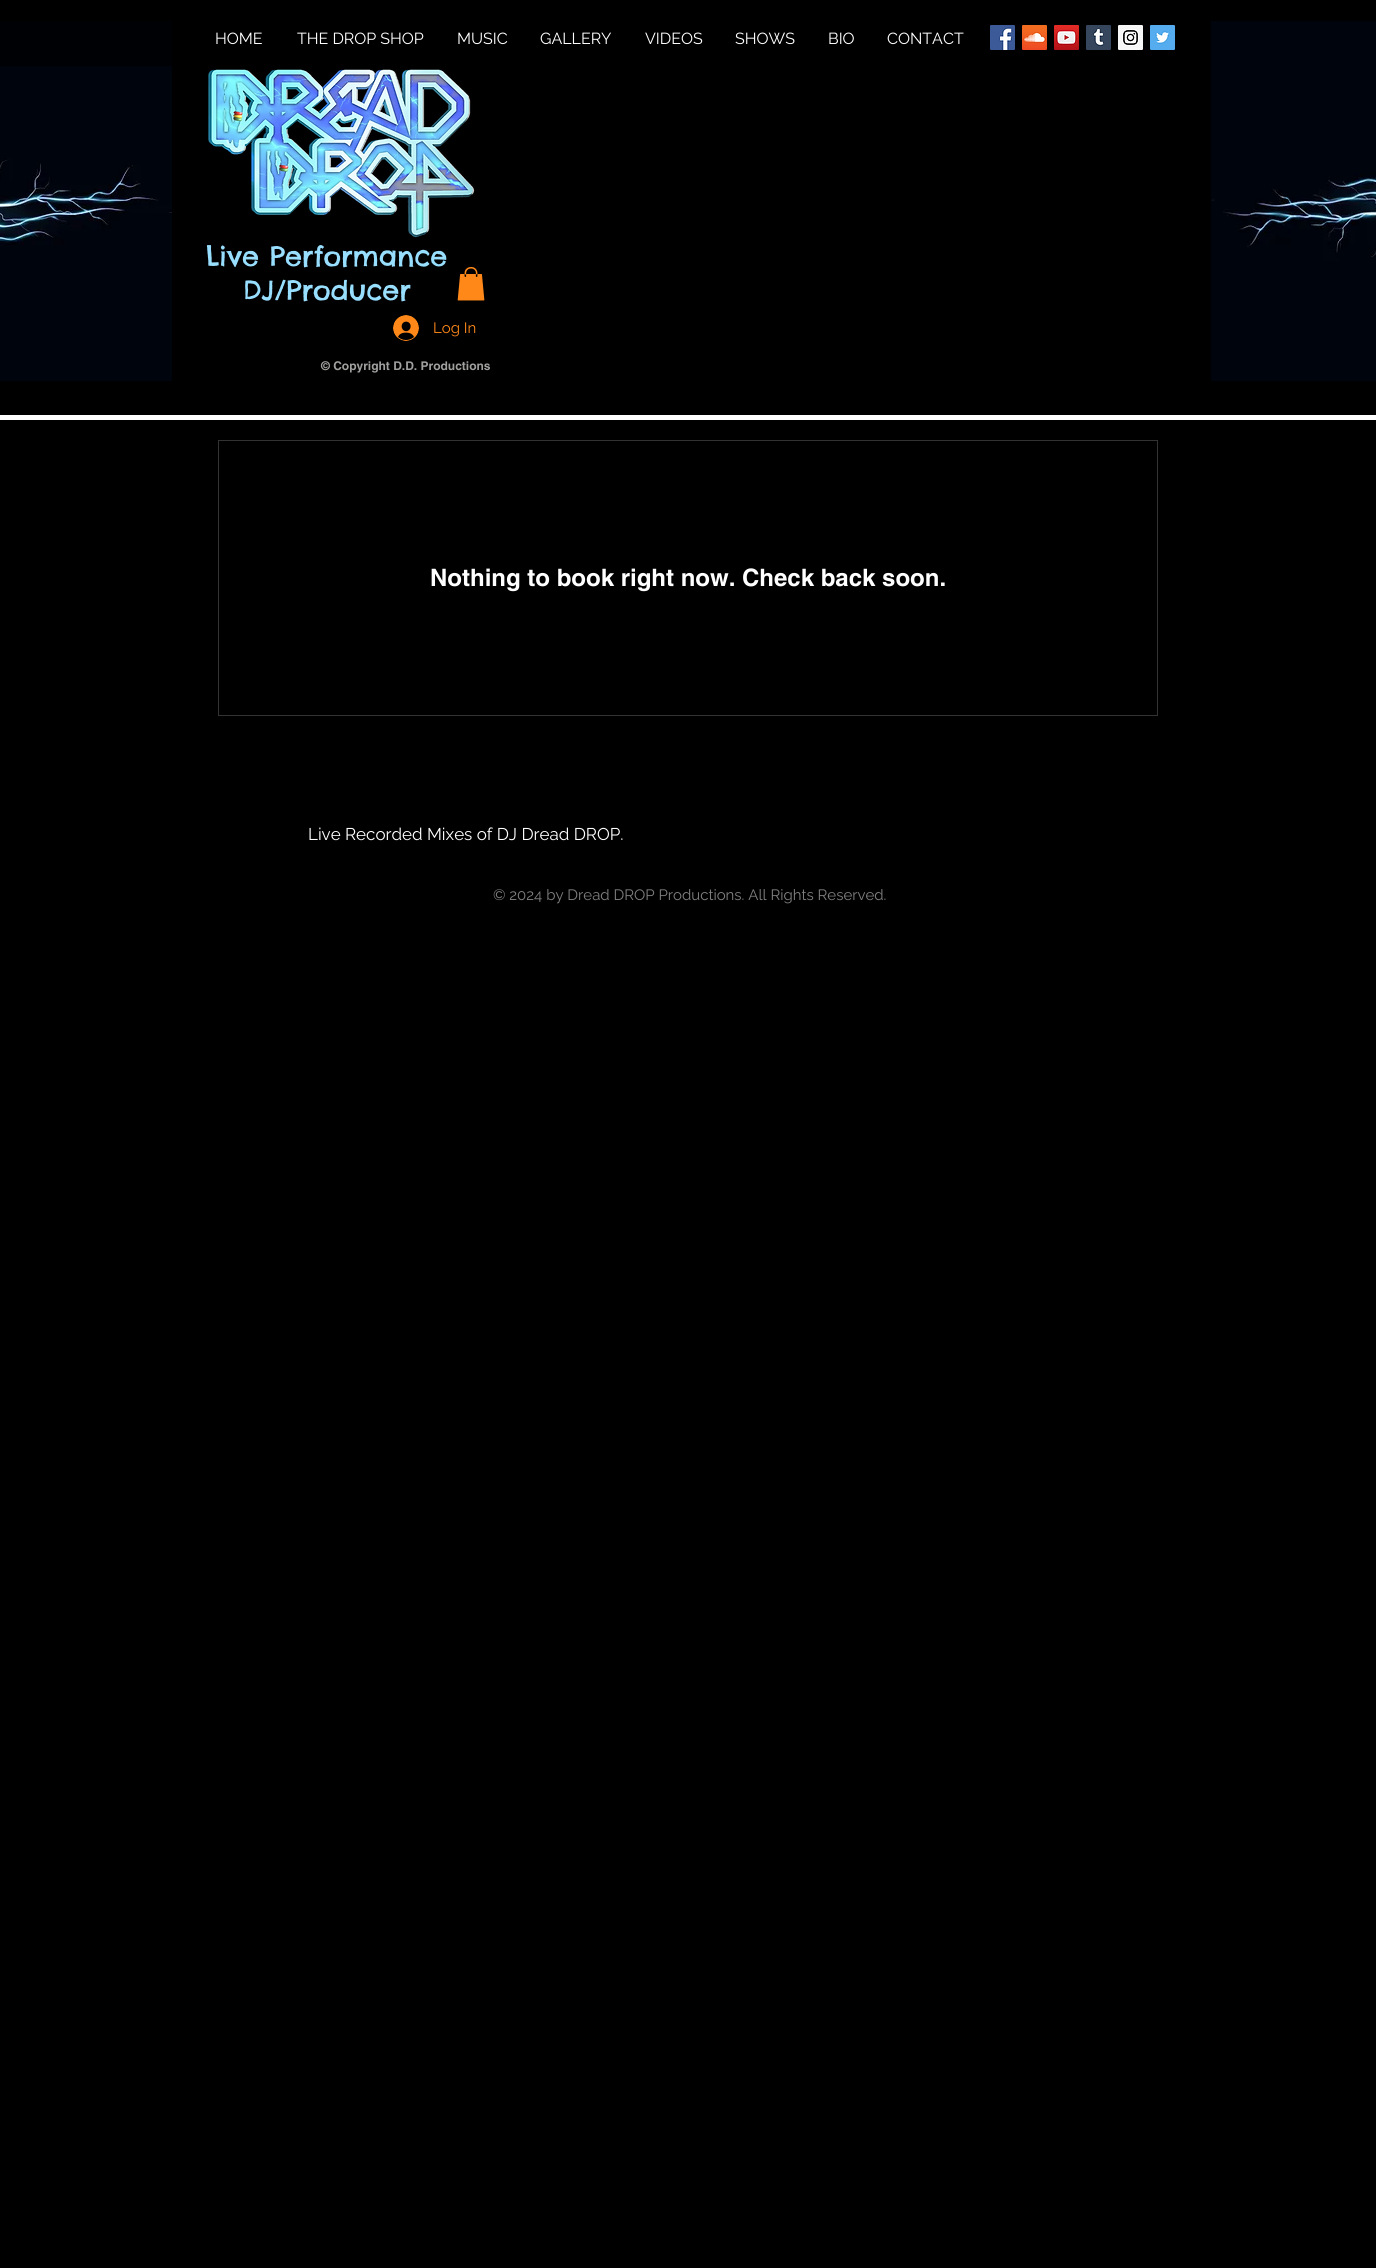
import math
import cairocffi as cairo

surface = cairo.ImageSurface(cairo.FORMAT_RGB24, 1376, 2268)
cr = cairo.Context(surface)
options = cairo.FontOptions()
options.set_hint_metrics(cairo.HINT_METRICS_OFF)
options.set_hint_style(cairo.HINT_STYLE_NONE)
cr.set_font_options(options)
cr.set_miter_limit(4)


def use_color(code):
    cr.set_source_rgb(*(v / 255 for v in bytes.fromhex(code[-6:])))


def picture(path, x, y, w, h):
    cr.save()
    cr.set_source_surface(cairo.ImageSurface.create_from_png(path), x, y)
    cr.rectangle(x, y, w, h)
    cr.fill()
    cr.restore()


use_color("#000000")
cr.paint()
picture("img1.png", 0, 21, 172, 360)
cr.set_source_rgba(0, 0, 0, 0.7)
cr.rectangle(0, 21, 172, 45)
cr.fill()
cr.select_font_face("Raleway")
cr.set_font_size(16)
use_color("#ffffff")
cr.move_to(215, 44)
cr.show_text("HOME")
cr.move_to(297, 44)
cr.show_text("THE DROP SHOP")
cr.move_to(457, 44)
cr.show_text("MUSIC")
cr.move_to(540, 44)
cr.show_text("GALLERY")
cr.move_to(645, 44)
cr.show_text("VIDEOS")
cr.move_to(735, 44)
cr.show_text("SHOWS")
cr.move_to(828, 44)
cr.show_text("BIO")
cr.move_to(887, 44)
cr.show_text("CONTACT")
picture("img2.png", 990, 25, 25, 25)
picture("img3.png", 1022, 25, 25, 25)
picture("img4.png", 1054, 25, 25, 25)
picture("img5.png", 1086, 25, 25, 25)
picture("img6.png", 1118, 25, 25, 25)
picture("img7.png", 1150, 25, 25, 25)
picture("img8.png", 1211, 21, 165, 360)
picture("img9.png", 208, 68, 267, 170)
cr.select_font_face("Chelsea Market")
cr.set_font_size(27)
use_color("#98deff")
cr.move_to(206, 266)
cr.show_text("Live Performance")
cr.move_to(243, 300)
cr.show_text("DJ/Producer")
picture("img10.png", 457, 267, 28, 34)
picture("img11.png", 393, 315, 26, 26)
cr.select_font_face("Raleway")
cr.set_font_size(15)
use_color("#ff8819")
cr.move_to(433, 333)
cr.show_text("Log In")
cr.select_font_face("helvetica", cairo.FONT_SLANT_NORMAL, cairo.FONT_WEIGHT_BOLD)
cr.set_font_size(12)
use_color("#a0a09f")
cr.move_to(321, 370)
cr.show_text("© Copyright D.D. Productions")
use_color("#ffffff")
cr.rectangle(0, 415, 1376, 5)
cr.fill()
cr.rectangle(218.5, 440.5, 939, 275)
use_color("#333333")
cr.set_line_width(1)
cr.stroke()
cr.set_font_size(24)
use_color("#ffffff")
cr.move_to(430, 586)
cr.show_text("Nothing to book right now. Check back soon.")
cr.select_font_face("Raleway")
cr.set_font_size(17)
cr.move_to(308, 840)
cr.show_text("Live Recorded Mixes of DJ Dread DROP.")
cr.set_font_size(15)
use_color("#808080")
cr.move_to(493, 900)
cr.show_text("© 2024 by Dread DROP Productions. All Rights Reserved.")
surface.write_to_png("result.png")
